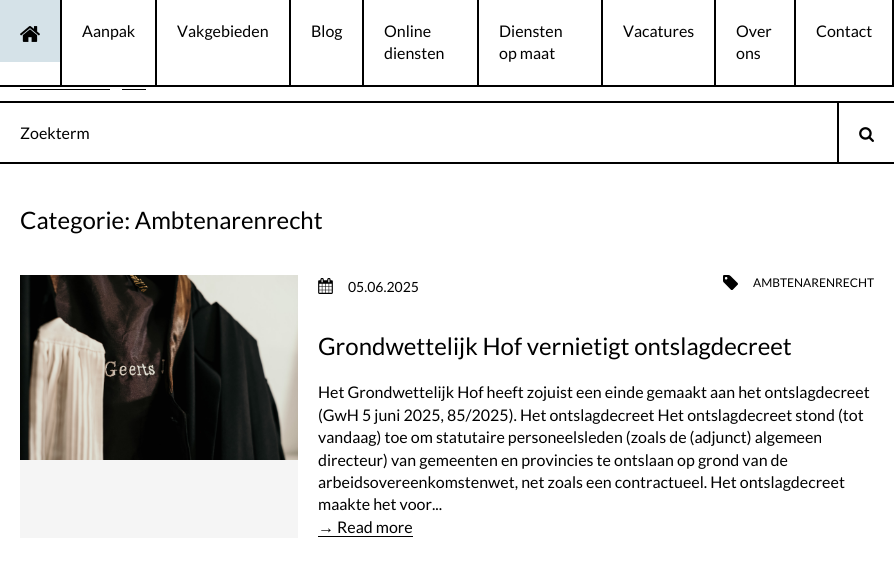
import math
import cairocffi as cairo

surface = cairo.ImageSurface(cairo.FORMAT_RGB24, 894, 573)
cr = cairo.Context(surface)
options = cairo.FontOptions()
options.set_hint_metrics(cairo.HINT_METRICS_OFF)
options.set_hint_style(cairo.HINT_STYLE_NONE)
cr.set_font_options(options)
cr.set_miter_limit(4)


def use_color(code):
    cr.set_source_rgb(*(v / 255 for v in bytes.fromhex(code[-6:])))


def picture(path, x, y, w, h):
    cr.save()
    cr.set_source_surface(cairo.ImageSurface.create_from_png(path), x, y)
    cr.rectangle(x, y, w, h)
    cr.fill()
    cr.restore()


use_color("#ffffff")
cr.paint()
use_color("#000000")
cr.rectangle(0, 85, 894, 2)
cr.fill()
cr.rectangle(60, 0, 2, 85)
cr.fill()
use_color("#d5e2e8")
cr.rectangle(0, 0, 60, 62)
cr.fill()
picture("img1.png", 20, 26, 20, 16)
use_color("#000000")
cr.rectangle(155, 0, 2, 85)
cr.fill()
cr.select_font_face("Lato")
cr.set_font_size(16)
cr.move_to(82, 37)
cr.show_text("Aanpak")
cr.rectangle(289, 0, 2, 85)
cr.fill()
cr.move_to(177, 37)
cr.show_text("Vakgebieden")
cr.rectangle(362, 0, 2, 85)
cr.fill()
cr.move_to(311, 37)
cr.show_text("Blog")
cr.rectangle(477, 0, 2, 85)
cr.fill()
cr.move_to(384, 37)
cr.show_text("Online")
cr.move_to(384, 59)
cr.show_text("diensten")
cr.rectangle(601, 0, 2, 85)
cr.fill()
cr.move_to(499, 37)
cr.show_text("Diensten")
cr.move_to(499, 59)
cr.show_text("op maat")
cr.rectangle(714, 0, 2, 85)
cr.fill()
cr.move_to(623, 37)
cr.show_text("Vacatures")
cr.rectangle(794, 0, 2, 85)
cr.fill()
cr.move_to(736, 37)
cr.show_text("Over")
cr.move_to(736, 59)
cr.show_text("ons")
cr.rectangle(892, 0, 2, 85)
cr.fill()
cr.move_to(816, 37)
cr.show_text("Contact")
cr.rectangle(0, 162, 894, 2)
cr.fill()
cr.rectangle(0, 101, 894, 2)
cr.fill()
cr.rectangle(20, 89, 90, 1)
cr.fill()
cr.rectangle(122, 89, 24, 1)
cr.fill()
cr.rectangle(837, 103, 2, 59)
cr.fill()
cr.move_to(20, 139)
cr.show_text("Zoekterm")
picture("img2.png", 859, 127, 15, 15)
cr.set_font_size(24)
cr.move_to(20, 229)
cr.show_text("Categorie: Ambtenarenrecht")
use_color("#f5f5f5")
cr.rectangle(20, 460, 278, 78)
cr.fill()
picture("img3.png", 20, 275, 278, 185)
picture("img4.png", 318, 278, 15, 16)
cr.set_font_size(14)
use_color("#000000")
cr.move_to(348, 292)
cr.show_text("05.06.2025")
picture("img5.png", 723, 275, 15, 15)
cr.set_font_size(12)
cr.move_to(753, 287)
cr.show_text("AMBTENARENRECHT")
cr.set_font_size(24)
cr.move_to(318, 355)
cr.show_text("Grondwettelijk Hof vernietigt ontslagdecreet")
cr.set_font_size(16)
cr.move_to(318, 398)
cr.show_text("Het Grondwettelijk Hof heeft zojuist een einde gemaakt aan het ontslagdecreet")
cr.move_to(318, 421)
cr.show_text("(GwH 5 juni 2025, 85/2025). Het ontslagdecreet Het ontslagdecreet stond (tot")
cr.move_to(318, 443)
cr.show_text("vandaag) toe om statutaire personeelsleden (zoals de (adjunct) algemeen")
cr.move_to(318, 466)
cr.show_text("directeur) van gemeenten en provincies te ontslaan op grond van de")
cr.move_to(318, 488)
cr.show_text("arbeidsovereenkomstenwet, net zoals een contractueel. Het ontslagdecreet")
cr.move_to(318, 510)
cr.show_text("maakte het voor...")
cr.select_font_face("Liberation Sans")
cr.move_to(318, 533)
cr.show_text("→")
cr.rectangle(318, 536, 95, 1)
cr.fill()
cr.select_font_face("Lato")
cr.move_to(337, 533)
cr.show_text("Read more")
surface.write_to_png("result.png")
